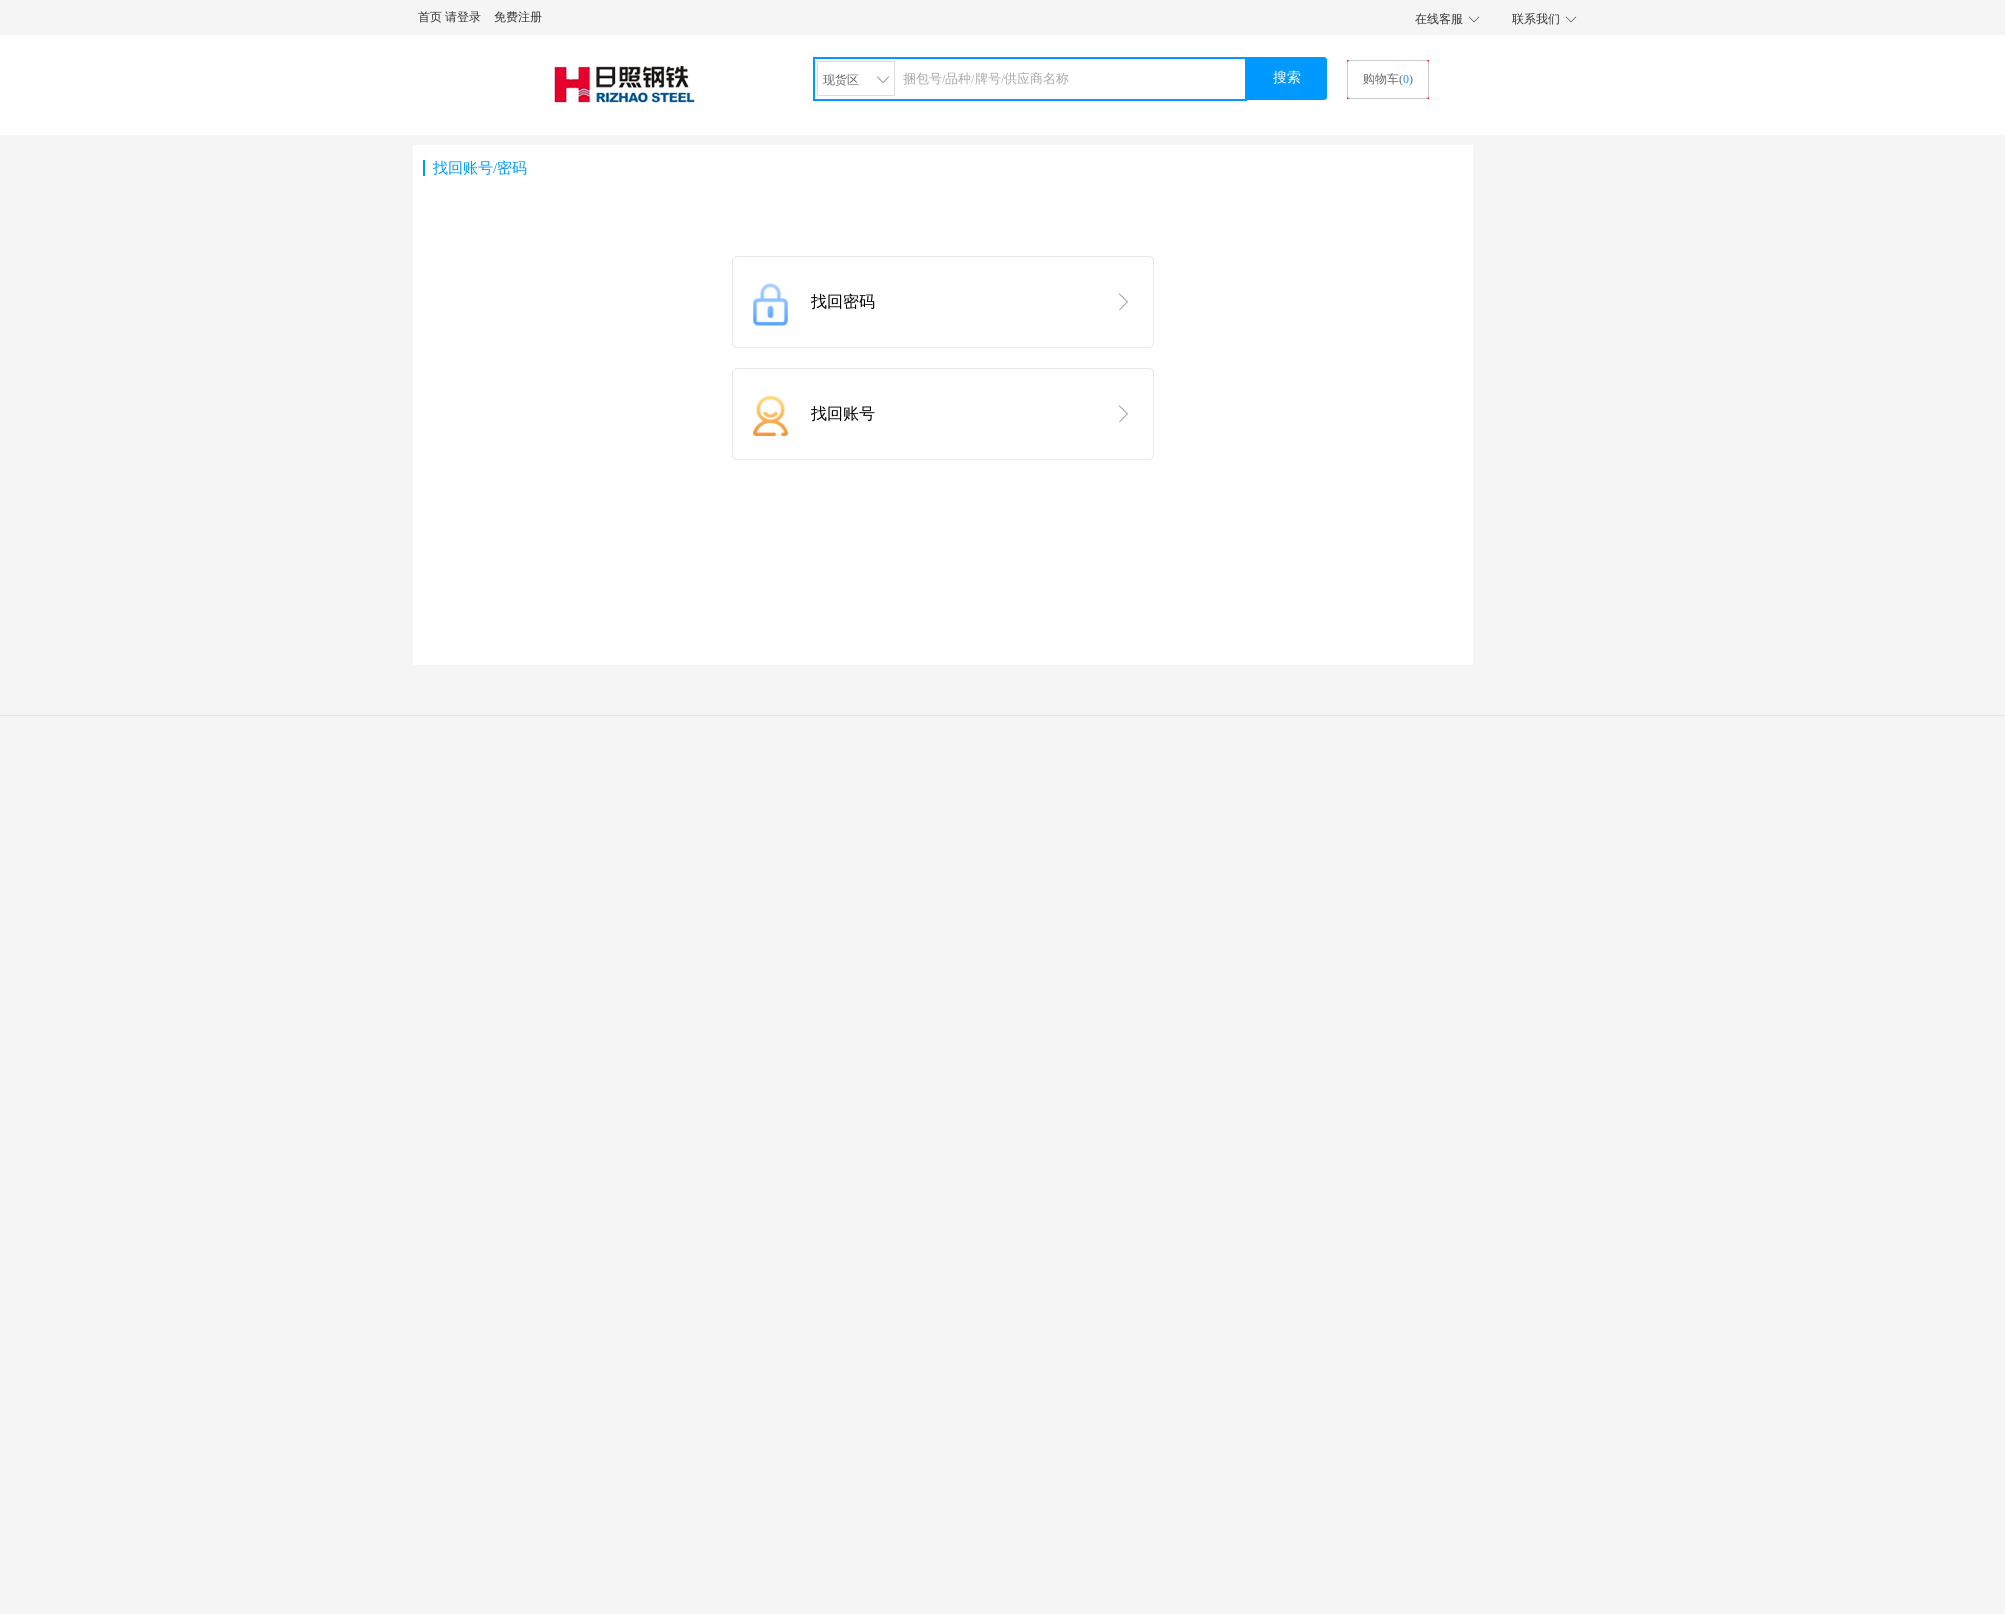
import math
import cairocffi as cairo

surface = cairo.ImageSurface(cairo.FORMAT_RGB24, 2005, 1614)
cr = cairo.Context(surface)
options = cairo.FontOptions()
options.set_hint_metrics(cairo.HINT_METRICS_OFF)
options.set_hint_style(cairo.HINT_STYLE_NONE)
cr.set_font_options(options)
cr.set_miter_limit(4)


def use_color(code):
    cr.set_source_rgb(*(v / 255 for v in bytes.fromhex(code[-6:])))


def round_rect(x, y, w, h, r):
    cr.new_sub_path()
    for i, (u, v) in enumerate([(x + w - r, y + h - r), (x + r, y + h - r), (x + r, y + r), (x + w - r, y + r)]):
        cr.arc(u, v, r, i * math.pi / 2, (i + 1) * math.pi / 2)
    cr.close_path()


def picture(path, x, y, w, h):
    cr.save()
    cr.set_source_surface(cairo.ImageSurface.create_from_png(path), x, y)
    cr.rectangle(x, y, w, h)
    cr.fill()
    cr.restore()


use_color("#f5f5f5")
cr.paint()
cr.select_font_face("WenQuanYi Zen Hei Medium")
cr.set_font_size(12)
use_color("#333333")
cr.move_to(418, 21)
cr.show_text("首页")
cr.move_to(445, 21)
cr.show_text("请登录")
cr.move_to(494, 21)
cr.show_text("免费注册")
cr.move_to(1415, 23)
cr.show_text("在线客服")
picture("img1.png", 1468, 16, 12, 7)
cr.move_to(1512, 23)
cr.show_text("联系我们")
picture("img1.png", 1565, 16, 12, 7)
use_color("#ffffff")
cr.rectangle(0, 35, 2005, 100)
cr.fill()
picture("img2.png", 554, 66, 141, 37)
cr.rectangle(814, 58, 432, 42)
use_color("#0099ff")
cr.stroke()
cr.rectangle(817.5, 61.5, 77, 34)
use_color("#dddddd")
cr.set_line_width(1)
cr.stroke()
use_color("#666666")
cr.move_to(823, 84)
cr.show_text("现货区")
picture("img3.png", 877, 76, 12, 7)
cr.set_font_size(13)
use_color("#a8a8a8")
cr.move_to(903, 83)
cr.show_text("捆包号")
cr.select_font_face("Liberation Serif")
cr.move_to(942, 83)
cr.show_text("/")
cr.select_font_face("WenQuanYi Zen Hei Medium")
cr.move_to(945, 83)
cr.show_text("品种")
cr.select_font_face("Liberation Serif")
cr.move_to(971, 83)
cr.show_text("/")
cr.select_font_face("WenQuanYi Zen Hei Medium")
cr.move_to(975, 83)
cr.show_text("牌号")
cr.select_font_face("Liberation Serif")
cr.move_to(1001, 83)
cr.show_text("/")
cr.select_font_face("WenQuanYi Zen Hei Medium")
cr.move_to(1004, 83)
cr.show_text("供应商名称")
use_color("#0099ff")
cr.new_path()
cr.move_to(1247, 57)
cr.line_to(1324, 57)
cr.curve_to(1325.5, 57, 1327, 58.5, 1327, 60)
cr.line_to(1327, 97)
cr.curve_to(1327, 98.5, 1325.5, 100, 1324, 100)
cr.line_to(1247, 100)
cr.close_path()
cr.fill()
cr.set_font_size(14)
use_color("#ffffff")
cr.move_to(1273, 82)
cr.show_text("搜索")
use_color("#ff001e")
cr.rectangle(1347, 60, 82, 39)
cr.fill()
use_color("#ffffff")
round_rect(1347.5, 60.5, 81, 38, 2.5)
cr.fill_preserve()
use_color("#cccccc")
cr.stroke()
cr.set_font_size(12)
use_color("#666666")
cr.move_to(1363, 83)
cr.show_text("购物车")
cr.select_font_face("Liberation Serif")
cr.move_to(1399, 83)
cr.show_text("(")
use_color("#0099ff")
cr.move_to(1403, 83)
cr.show_text("0")
use_color("#666666")
cr.move_to(1409, 83)
cr.show_text(")")
use_color("#ffffff")
cr.rectangle(413, 145, 1060, 520)
cr.fill()
use_color("#0099ff")
cr.rectangle(423, 160, 2, 16)
cr.fill()
cr.select_font_face("WenQuanYi Zen Hei Medium")
cr.set_font_size(15)
cr.move_to(433, 173)
cr.show_text("找回账号")
cr.select_font_face("Liberation Serif")
cr.move_to(493, 173)
cr.show_text("/")
cr.select_font_face("WenQuanYi Zen Hei Medium")
cr.move_to(497, 173)
cr.show_text("密码")
round_rect(732.5, 256.5, 421, 91, 4.5)
use_color("#e8e8e8")
cr.stroke()
picture("img4.png", 753, 283, 35, 43)
cr.set_font_size(16)
use_color("#000000")
cr.move_to(811, 307)
cr.show_text("找回密码")
picture("img5.png", 1118, 293, 10, 17)
round_rect(732.5, 368.5, 421, 91, 4.5)
use_color("#e8e8e8")
cr.stroke()
picture("img6.png", 753, 396, 35, 40)
use_color("#000000")
cr.move_to(811, 419)
cr.show_text("找回账号")
picture("img5.png", 1118, 405, 10, 17)
use_color("#e2e2e2")
cr.rectangle(0, 715, 2005, 1)
cr.fill()
surface.write_to_png("result.png")
